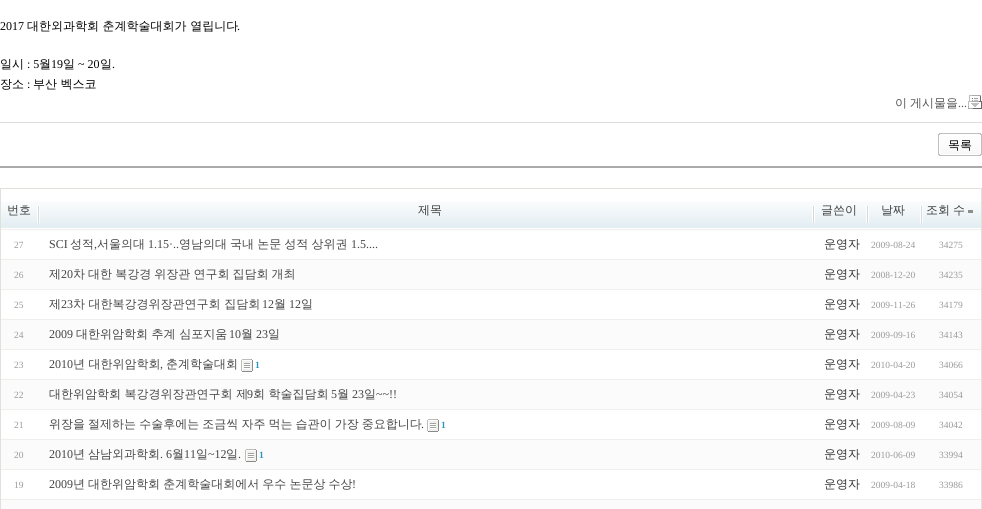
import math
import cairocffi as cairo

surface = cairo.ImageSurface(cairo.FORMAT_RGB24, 982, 509)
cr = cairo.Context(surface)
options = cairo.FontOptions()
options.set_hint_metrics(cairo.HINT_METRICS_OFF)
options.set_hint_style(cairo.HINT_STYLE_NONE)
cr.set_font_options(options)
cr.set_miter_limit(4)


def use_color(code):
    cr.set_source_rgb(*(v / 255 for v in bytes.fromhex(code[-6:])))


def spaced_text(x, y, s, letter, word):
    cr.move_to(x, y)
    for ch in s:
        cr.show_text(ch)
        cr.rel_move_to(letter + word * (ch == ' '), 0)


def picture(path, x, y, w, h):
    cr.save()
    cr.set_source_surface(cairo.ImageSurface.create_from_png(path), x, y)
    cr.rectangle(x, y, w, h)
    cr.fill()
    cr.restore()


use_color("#ffffff")
cr.paint()
use_color("#aaaaaa")
cr.rectangle(0, 166, 982, 2)
cr.fill()
cr.select_font_face("Liberation Serif")
cr.set_font_size(12)
use_color("#000000")
cr.move_to(0, 30)
cr.show_text("2017")
cr.select_font_face("WenQuanYi Zen Hei Medium")
cr.move_to(27, 30)
cr.show_text("대한외과학회 춘계학술대회가 열립니다")
cr.select_font_face("Liberation Serif")
cr.move_to(237, 30)
cr.show_text(".")
cr.select_font_face("WenQuanYi Zen Hei Medium")
cr.move_to(0, 68)
cr.show_text("일시")
cr.select_font_face("Liberation Serif")
cr.move_to(27, 68)
cr.show_text(": 5")
cr.select_font_face("WenQuanYi Zen Hei Medium")
cr.move_to(39, 68)
cr.show_text("월")
cr.select_font_face("Liberation Serif")
cr.move_to(51, 68)
cr.show_text("19")
cr.select_font_face("WenQuanYi Zen Hei Medium")
cr.move_to(63, 68)
cr.show_text("일")
cr.select_font_face("Liberation Serif")
cr.move_to(78, 68)
cr.show_text("~ 20")
cr.select_font_face("WenQuanYi Zen Hei Medium")
cr.move_to(100, 68)
cr.show_text("일")
cr.select_font_face("Liberation Serif")
cr.move_to(112, 68)
cr.show_text(".")
cr.select_font_face("WenQuanYi Zen Hei Medium")
cr.move_to(0, 88)
cr.show_text("장소")
cr.select_font_face("Liberation Serif")
cr.move_to(27, 88)
cr.show_text(":")
cr.select_font_face("WenQuanYi Zen Hei Medium")
cr.move_to(33, 88)
cr.show_text("부산 벡스코")
picture("img1.png", 968, 95, 14, 14)
use_color("#555555")
spaced_text(895, 107, "이 게시물을", 0, -0.5)
cr.select_font_face("Liberation Serif")
cr.move_to(958, 107)
cr.show_text("...")
use_color("#dddddd")
cr.rectangle(0, 122, 982, 1)
cr.fill()
picture("img2.png", 938, 133, 42, 23)
picture("img3.png", 980, 133, 2, 23)
cr.select_font_face("WenQuanYi Zen Hei Medium")
use_color("#000000")
cr.move_to(948, 149)
cr.show_text("목록")
use_color("#e0e1db")
cr.rectangle(981, 188, 1, 321)
cr.fill()
cr.rectangle(0, 188, 1, 321)
cr.fill()
picture("img4.png", 1, 201, 36, 27)
cr.rectangle(1, 188, 980, 1)
cr.fill()
use_color("#3e3f3e")
cr.move_to(7, 214)
cr.show_text("번호")
picture("img5.png", 37, 201, 775, 27)
cr.move_to(418, 214)
cr.show_text("제목")
picture("img6.png", 812, 201, 54, 27)
cr.move_to(821, 214)
cr.show_text("글쓴이")
picture("img6.png", 866, 201, 54, 27)
cr.move_to(881, 214)
cr.show_text("날짜")
picture("img7.png", 920, 201, 61, 27)
spaced_text(926, 214, "조회 수", 0, -0.5)
use_color("#8c8f86")
cr.rectangle(968, 210, 5, 3)
cr.fill()
use_color("#eff0ed")
cr.rectangle(1, 229, 980, 1)
cr.fill()
cr.select_font_face("Liberation Serif")
cr.set_font_size(9.5)
use_color("#999999")
cr.move_to(14, 248)
cr.show_text("27")
cr.set_font_size(12)
use_color("#444444")
cr.move_to(49, 248)
cr.show_text("SCI")
cr.select_font_face("WenQuanYi Zen Hei Medium")
cr.move_to(70, 248)
cr.show_text("성적")
cr.select_font_face("Liberation Serif")
cr.move_to(94, 248)
cr.show_text(",")
cr.select_font_face("WenQuanYi Zen Hei Medium")
cr.move_to(97, 248)
cr.show_text("서울의대")
cr.select_font_face("Liberation Serif")
cr.move_to(148, 248)
cr.show_text("1.15·..")
cr.select_font_face("WenQuanYi Zen Hei Medium")
spaced_text(179, 248, "영남의대 국내 논문 성적 상위권", 0, -0.5)
cr.select_font_face("Liberation Serif")
cr.move_to(351, 248)
cr.show_text("1.5....")
cr.select_font_face("WenQuanYi Zen Hei Medium")
use_color("#333333")
cr.move_to(824, 248)
cr.show_text("운영자")
cr.select_font_face("Liberation Serif")
cr.set_font_size(9.5)
use_color("#999999")
cr.move_to(871, 248)
cr.show_text("2009-08-24")
cr.move_to(939, 248)
cr.show_text("34275")
use_color("#fbfbfb")
cr.rectangle(1, 260, 980, 29)
cr.fill()
use_color("#eff0ed")
cr.rectangle(1, 259, 980, 1)
cr.fill()
use_color("#999999")
cr.move_to(14, 278)
cr.show_text("26")
cr.select_font_face("WenQuanYi Zen Hei Medium")
cr.set_font_size(12)
use_color("#444444")
cr.move_to(49, 278)
cr.show_text("제")
cr.select_font_face("Liberation Serif")
cr.move_to(61, 278)
cr.show_text("20")
cr.select_font_face("WenQuanYi Zen Hei Medium")
spaced_text(73, 278, "차 대한 복강경 위장관 연구회 집담회 개최", 0, -0.5)
use_color("#333333")
cr.move_to(824, 278)
cr.show_text("운영자")
cr.select_font_face("Liberation Serif")
cr.set_font_size(9.5)
use_color("#999999")
cr.move_to(871, 278)
cr.show_text("2008-12-20")
cr.move_to(939, 278)
cr.show_text("34235")
use_color("#eff0ed")
cr.rectangle(1, 289, 980, 1)
cr.fill()
use_color("#999999")
cr.move_to(14, 308)
cr.show_text("25")
cr.select_font_face("WenQuanYi Zen Hei Medium")
cr.set_font_size(12)
use_color("#444444")
cr.move_to(49, 308)
cr.show_text("제")
cr.select_font_face("Liberation Serif")
cr.move_to(61, 308)
cr.show_text("23")
cr.select_font_face("WenQuanYi Zen Hei Medium")
cr.move_to(73, 308)
cr.show_text("차 대한복강경위장관연구회 집담회")
cr.select_font_face("Liberation Serif")
cr.move_to(262, 308)
cr.show_text("12")
cr.select_font_face("WenQuanYi Zen Hei Medium")
cr.move_to(274, 308)
cr.show_text("월")
cr.select_font_face("Liberation Serif")
cr.move_to(289, 308)
cr.show_text("12")
cr.select_font_face("WenQuanYi Zen Hei Medium")
cr.move_to(301, 308)
cr.show_text("일")
use_color("#333333")
cr.move_to(824, 308)
cr.show_text("운영자")
cr.select_font_face("Liberation Serif")
cr.set_font_size(9.5)
use_color("#999999")
cr.move_to(871, 308)
cr.show_text("2009-11-26")
cr.move_to(939, 308)
cr.show_text("34179")
use_color("#fbfbfb")
cr.rectangle(1, 320, 980, 29)
cr.fill()
use_color("#eff0ed")
cr.rectangle(1, 319, 980, 1)
cr.fill()
use_color("#999999")
cr.move_to(14, 338)
cr.show_text("24")
cr.set_font_size(12)
use_color("#444444")
cr.move_to(49, 338)
cr.show_text("2009")
cr.select_font_face("WenQuanYi Zen Hei Medium")
cr.move_to(76, 338)
cr.show_text("대한위암학회 추계 심포지움")
cr.select_font_face("Liberation Serif")
cr.move_to(229, 338)
cr.show_text("10")
cr.select_font_face("WenQuanYi Zen Hei Medium")
cr.move_to(241, 338)
cr.show_text("월")
cr.select_font_face("Liberation Serif")
cr.move_to(256, 338)
cr.show_text("23")
cr.select_font_face("WenQuanYi Zen Hei Medium")
cr.move_to(268, 338)
cr.show_text("일")
use_color("#333333")
cr.move_to(824, 338)
cr.show_text("운영자")
cr.select_font_face("Liberation Serif")
cr.set_font_size(9.5)
use_color("#999999")
cr.move_to(871, 338)
cr.show_text("2009-09-16")
cr.move_to(939, 338)
cr.show_text("34143")
use_color("#eff0ed")
cr.rectangle(1, 349, 980, 1)
cr.fill()
use_color("#999999")
cr.move_to(14, 368)
cr.show_text("23")
cr.set_font_size(12)
use_color("#444444")
cr.move_to(49, 368)
cr.show_text("2010")
cr.select_font_face("WenQuanYi Zen Hei Medium")
cr.move_to(73, 368)
cr.show_text("년 대한위암학회")
cr.select_font_face("Liberation Serif")
cr.move_to(160, 368)
cr.show_text(",")
cr.select_font_face("WenQuanYi Zen Hei Medium")
cr.move_to(166, 368)
cr.show_text("춘계학술대회")
picture("img8.png", 241, 359, 12, 13)
cr.select_font_face("Liberation Serif", cairo.FONT_SLANT_NORMAL, cairo.FONT_WEIGHT_BOLD)
cr.set_font_size(9.5)
use_color("#2895c0")
cr.move_to(255, 368)
cr.show_text("1")
cr.select_font_face("WenQuanYi Zen Hei Medium")
cr.set_font_size(12)
use_color("#333333")
cr.move_to(824, 368)
cr.show_text("운영자")
cr.select_font_face("Liberation Serif")
cr.set_font_size(9.5)
use_color("#999999")
cr.move_to(871, 368)
cr.show_text("2010-04-20")
cr.move_to(939, 368)
cr.show_text("34066")
use_color("#fbfbfb")
cr.rectangle(1, 380, 980, 29)
cr.fill()
use_color("#eff0ed")
cr.rectangle(1, 379, 980, 1)
cr.fill()
use_color("#999999")
cr.move_to(14, 398)
cr.show_text("22")
cr.select_font_face("WenQuanYi Zen Hei Medium")
cr.set_font_size(12)
use_color("#444444")
cr.move_to(49, 398)
cr.show_text("대한위암학회 복강경위장관연구회 제")
cr.select_font_face("Liberation Serif")
cr.move_to(247, 398)
cr.show_text("9")
cr.select_font_face("WenQuanYi Zen Hei Medium")
cr.move_to(253, 398)
cr.show_text("회 학술집담회")
cr.select_font_face("Liberation Serif")
cr.move_to(331, 398)
cr.show_text("5")
cr.select_font_face("WenQuanYi Zen Hei Medium")
cr.move_to(337, 398)
cr.show_text("월")
cr.select_font_face("Liberation Serif")
cr.move_to(352, 398)
cr.show_text("23")
cr.select_font_face("WenQuanYi Zen Hei Medium")
cr.move_to(364, 398)
cr.show_text("일")
cr.select_font_face("Liberation Serif")
cr.move_to(376, 398)
cr.show_text("~~!!")
cr.select_font_face("WenQuanYi Zen Hei Medium")
use_color("#333333")
cr.move_to(824, 398)
cr.show_text("운영자")
cr.select_font_face("Liberation Serif")
cr.set_font_size(9.5)
use_color("#999999")
cr.move_to(871, 398)
cr.show_text("2009-04-23")
cr.move_to(939, 398)
cr.show_text("34054")
use_color("#eff0ed")
cr.rectangle(1, 409, 980, 1)
cr.fill()
use_color("#999999")
cr.move_to(14, 428)
cr.show_text("21")
cr.select_font_face("WenQuanYi Zen Hei Medium")
cr.set_font_size(12)
use_color("#444444")
spaced_text(49, 428, "위장을 절제하는 수술후에는 조금씩 자주 먹는 습관이 가장 중요합니다", 0, -0.5)
cr.select_font_face("Liberation Serif")
cr.move_to(421, 428)
cr.show_text(".")
picture("img8.png", 427, 419, 12, 13)
cr.select_font_face("Liberation Serif", cairo.FONT_SLANT_NORMAL, cairo.FONT_WEIGHT_BOLD)
cr.set_font_size(9.5)
use_color("#2895c0")
cr.move_to(441, 428)
cr.show_text("1")
cr.select_font_face("WenQuanYi Zen Hei Medium")
cr.set_font_size(12)
use_color("#333333")
cr.move_to(824, 428)
cr.show_text("운영자")
cr.select_font_face("Liberation Serif")
cr.set_font_size(9.5)
use_color("#999999")
cr.move_to(871, 428)
cr.show_text("2009-08-09")
cr.move_to(939, 428)
cr.show_text("34042")
use_color("#fbfbfb")
cr.rectangle(1, 440, 980, 29)
cr.fill()
use_color("#eff0ed")
cr.rectangle(1, 439, 980, 1)
cr.fill()
use_color("#999999")
cr.move_to(14, 458)
cr.show_text("20")
cr.set_font_size(12)
use_color("#444444")
cr.move_to(49, 458)
cr.show_text("2010")
cr.select_font_face("WenQuanYi Zen Hei Medium")
cr.move_to(73, 458)
cr.show_text("년")
cr.move_to(88, 458)
cr.show_text("삼남외과학회")
cr.select_font_face("Liberation Serif")
cr.move_to(160, 458)
cr.show_text(". 6")
cr.select_font_face("WenQuanYi Zen Hei Medium")
cr.move_to(172, 458)
cr.show_text("월")
cr.select_font_face("Liberation Serif")
cr.move_to(184, 458)
cr.show_text("11")
cr.select_font_face("WenQuanYi Zen Hei Medium")
cr.move_to(196, 458)
cr.show_text("일")
cr.select_font_face("Liberation Serif")
cr.move_to(208, 458)
cr.show_text("~12")
cr.select_font_face("WenQuanYi Zen Hei Medium")
cr.move_to(226, 458)
cr.show_text("일")
cr.select_font_face("Liberation Serif")
cr.move_to(238, 458)
cr.show_text(".")
picture("img9.png", 245, 449, 12, 13)
cr.select_font_face("Liberation Serif", cairo.FONT_SLANT_NORMAL, cairo.FONT_WEIGHT_BOLD)
cr.set_font_size(9.5)
use_color("#2895c0")
cr.move_to(259, 458)
cr.show_text("1")
cr.select_font_face("WenQuanYi Zen Hei Medium")
cr.set_font_size(12)
use_color("#333333")
cr.move_to(824, 458)
cr.show_text("운영자")
cr.select_font_face("Liberation Serif")
cr.set_font_size(9.5)
use_color("#999999")
cr.move_to(871, 458)
cr.show_text("2010-06-09")
cr.move_to(939, 458)
cr.show_text("33994")
use_color("#eff0ed")
cr.rectangle(1, 469, 980, 1)
cr.fill()
use_color("#999999")
cr.move_to(14, 488)
cr.show_text("19")
cr.set_font_size(12)
use_color("#444444")
cr.move_to(49, 488)
cr.show_text("2009")
cr.select_font_face("WenQuanYi Zen Hei Medium")
spaced_text(73, 488, "년 대한위암학회 춘계학술대회에서 우수 논문상 수상", 0, -0.5)
cr.select_font_face("Liberation Serif")
cr.move_to(352, 488)
cr.show_text("!")
cr.select_font_face("WenQuanYi Zen Hei Medium")
use_color("#333333")
cr.move_to(824, 488)
cr.show_text("운영자")
cr.select_font_face("Liberation Serif")
cr.set_font_size(9.5)
use_color("#999999")
cr.move_to(871, 488)
cr.show_text("2009-04-18")
cr.move_to(939, 488)
cr.show_text("33986")
use_color("#fbfbfb")
cr.rectangle(1, 500, 980, 9)
cr.fill()
use_color("#eff0ed")
cr.rectangle(1, 499, 980, 1)
cr.fill()
surface.write_to_png("result.png")
